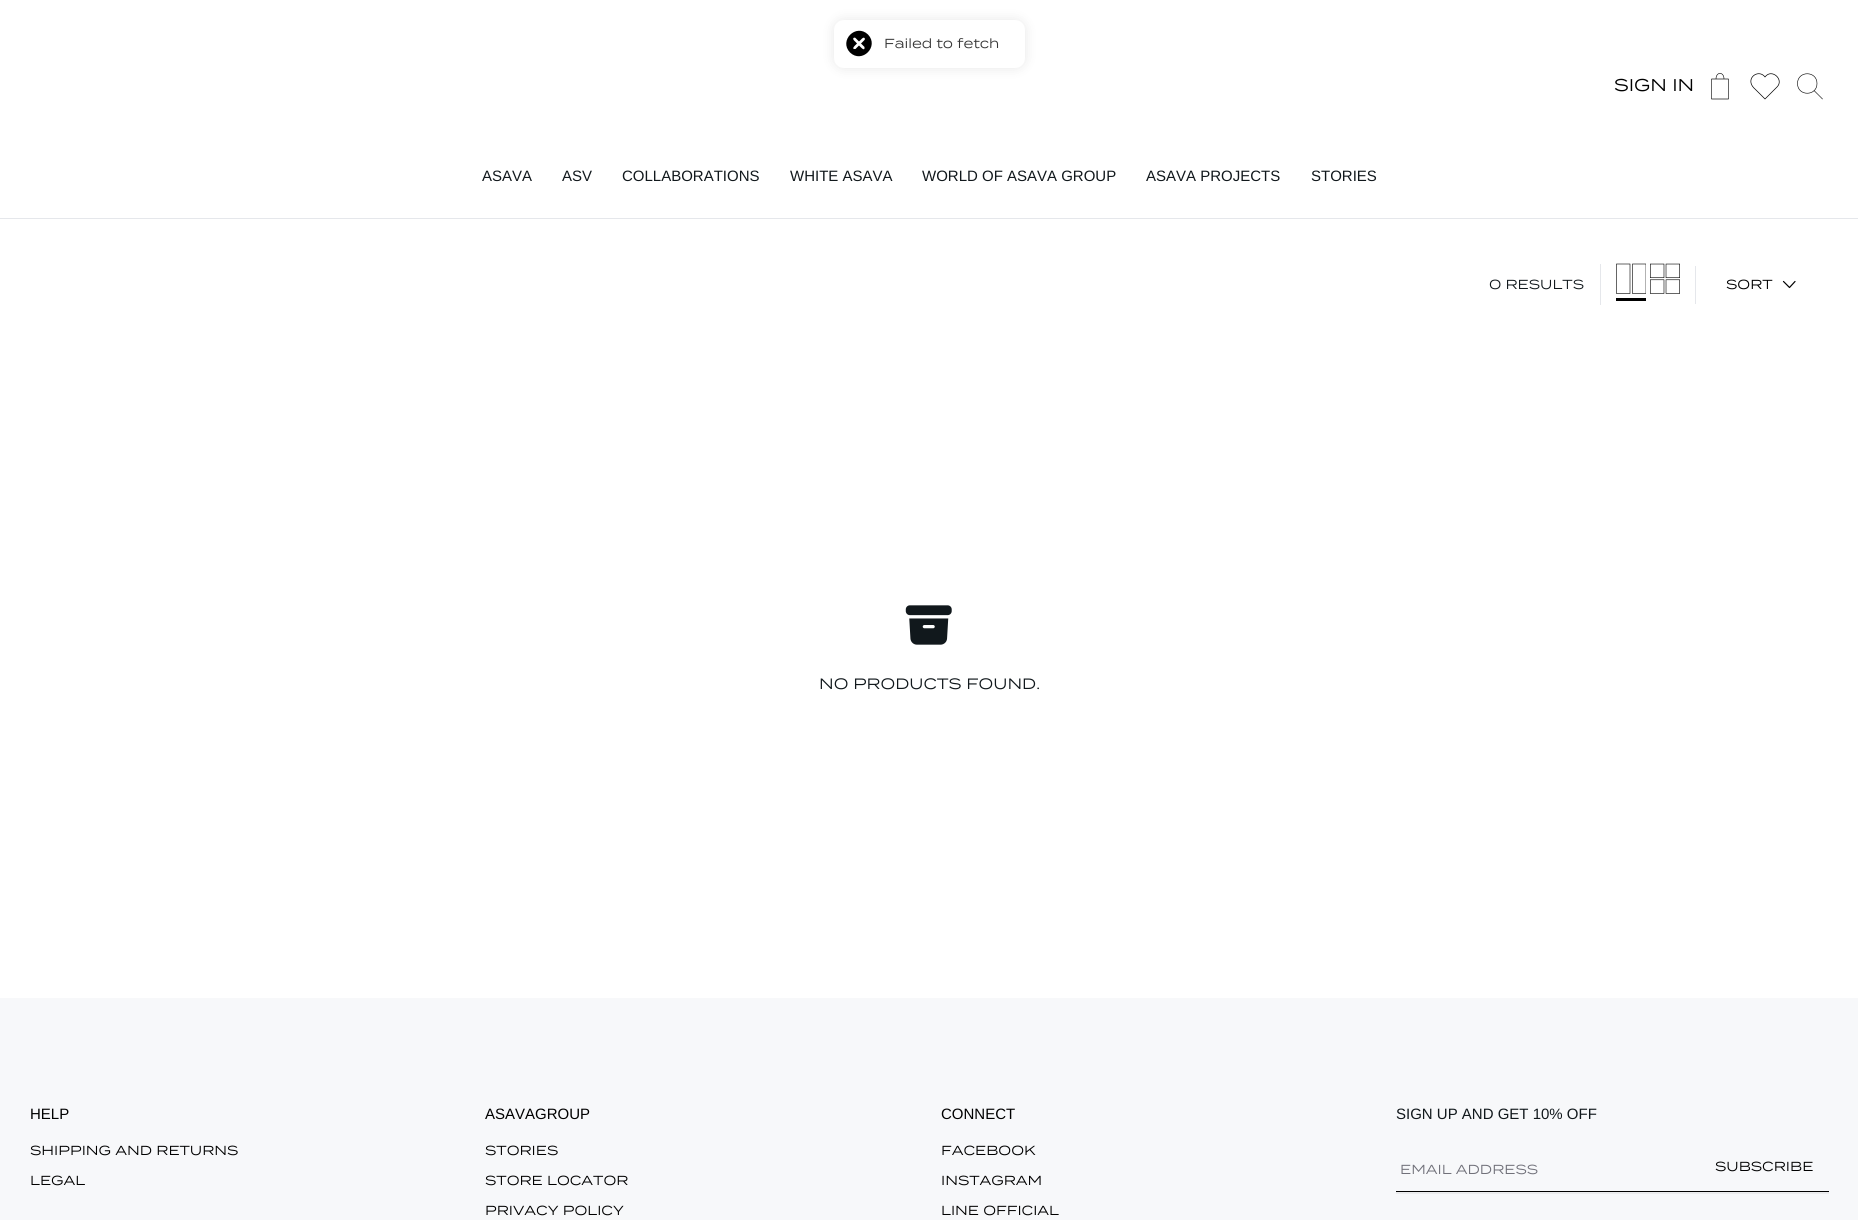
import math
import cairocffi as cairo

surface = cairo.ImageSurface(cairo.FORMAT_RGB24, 1858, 1220)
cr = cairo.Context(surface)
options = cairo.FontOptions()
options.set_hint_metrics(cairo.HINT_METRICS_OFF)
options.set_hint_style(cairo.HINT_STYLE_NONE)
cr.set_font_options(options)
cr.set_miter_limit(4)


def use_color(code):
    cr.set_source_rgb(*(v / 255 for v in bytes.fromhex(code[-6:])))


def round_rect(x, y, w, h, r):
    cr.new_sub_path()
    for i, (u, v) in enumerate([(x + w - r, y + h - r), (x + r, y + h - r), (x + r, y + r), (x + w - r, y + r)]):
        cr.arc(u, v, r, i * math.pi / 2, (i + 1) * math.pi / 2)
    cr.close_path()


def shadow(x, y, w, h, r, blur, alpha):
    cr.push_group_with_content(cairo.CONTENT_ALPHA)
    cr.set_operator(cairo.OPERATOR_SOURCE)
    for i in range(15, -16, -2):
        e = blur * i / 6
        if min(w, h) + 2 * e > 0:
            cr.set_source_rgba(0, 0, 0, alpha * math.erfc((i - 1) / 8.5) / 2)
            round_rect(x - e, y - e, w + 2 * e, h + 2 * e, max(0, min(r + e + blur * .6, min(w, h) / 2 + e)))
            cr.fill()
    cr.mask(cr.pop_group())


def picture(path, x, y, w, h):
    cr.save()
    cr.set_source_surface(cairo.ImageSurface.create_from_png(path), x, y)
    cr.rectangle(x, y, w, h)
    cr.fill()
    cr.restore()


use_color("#ffffff")
cr.paint()
use_color("#000000")
shadow(834, 20, 191, 48, 10, 6, 0.1)
use_color("#ffffff")
round_rect(834, 20, 191, 48, 10)
cr.fill()
use_color("#000000")
cr.new_path()
cr.move_to(868, 34.5)
cr.curve_to(879.5, 46.5, 862, 64, 850, 52.5)
cr.curve_to(838.5, 40.5, 856, 23, 868, 34.5)
cr.close_path()
cr.fill()
use_color("#ffffff")
cr.new_path()
cr.move_to(864.5, 40)
cr.line_to(855.5, 49)
cr.line_to(854, 49)
cr.curve_to(852, 48.5, 854.5, 46, 855, 45.5)
cr.line_to(859.5, 41)
cr.curve_to(860.5, 40.5, 863, 36.5, 864.5, 38)
cr.curve_to(865, 38.5, 865, 39.5, 864.5, 40)
cr.close_path()
cr.fill()
cr.new_path()
cr.move_to(855.5, 38)
cr.line_to(864.5, 47)
cr.line_to(864.5, 48.5)
cr.curve_to(864, 50.5, 861.5, 48, 861, 47.5)
cr.line_to(856.5, 43)
cr.curve_to(856, 42, 852, 39.5, 853.5, 38)
cr.curve_to(854, 37.5, 855, 37.5, 855.5, 38)
cr.close_path()
cr.fill()
cr.select_font_face("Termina")
cr.set_font_size(13.1)
use_color("#363636")
cr.move_to(884, 48)
cr.show_text("Failed to fetch")
use_color("#e5e7eb")
cr.rectangle(0, 218, 1858, 1)
cr.fill()
cr.set_font_size(17)
use_color("#000000")
cr.move_to(1614, 91)
cr.show_text("SIGN IN")
cr.new_path()
cr.move_to(1711.5, 79)
cr.line_to(1728.5, 79)
cr.line_to(1728.5, 99)
cr.line_to(1711.5, 99)
cr.close_path()
cr.move_to(1716, 79)
cr.curve_to(1716, 71.5, 1724, 71.5, 1724, 79)
cr.set_line_width(0.6)
cr.set_line_cap(cairo.LINE_CAP_ROUND)
cr.set_line_join(cairo.LINE_JOIN_ROUND)
cr.stroke()
cr.new_path()
cr.move_to(1777, 87)
cr.line_to(1765, 99)
cr.line_to(1757, 91)
cr.curve_to(1755, 89, 1752.5, 87, 1751.5, 84.5)
cr.curve_to(1748, 76, 1759.5, 69.5, 1765, 77)
cr.curve_to(1771.5, 68, 1784.5, 79.5, 1777, 87)
cr.set_line_width(0.7)
cr.stroke()
cr.new_path()
cr.move_to(1797.5, 83.5)
cr.curve_to(1797.5, 96.5, 1817, 96.5, 1817, 83.5)
cr.curve_to(1817, 70.5, 1797.5, 70.5, 1797.5, 83.5)
cr.move_to(1822.5, 99)
cr.line_to(1814, 90.5)
cr.set_line_width(0.6)
cr.stroke()
cr.select_font_face("Liberation Sans")
cr.set_font_size(15)
use_color("#11181c")
cr.move_to(482, 181)
cr.show_text("ASAVA")
cr.move_to(562, 181)
cr.show_text("ASV")
cr.move_to(622, 181)
cr.show_text("COLLABORATIONS")
cr.move_to(790, 181)
cr.show_text("WHITE ASAVA")
cr.move_to(922, 181)
cr.show_text("WORLD OF ASAVA GROUP")
cr.move_to(1146, 181)
cr.show_text("ASAVA PROJECTS")
cr.move_to(1311, 181)
cr.show_text("STORIES")
cr.select_font_face("Termina")
cr.set_font_size(13.1)
cr.move_to(1489, 289)
cr.show_text("0 RESULTS")
use_color("#e5e7eb")
cr.rectangle(1600, 264, 1, 41)
cr.fill()
cr.save()
cr.rectangle(1616, 260, 30, 38)
cr.clip()
cr.new_path()
cr.move_to(1632.5, 264)
cr.line_to(1646, 264)
cr.line_to(1646, 293.5)
cr.line_to(1632.5, 293.5)
cr.close_path()
use_color("#000000")
cr.set_line_cap(cairo.LINE_CAP_BUTT)
cr.set_line_join(cairo.LINE_JOIN_MITER)
cr.stroke()
cr.restore()
cr.new_path()
cr.move_to(1616.5, 264)
cr.line_to(1630, 264)
cr.line_to(1630, 293.5)
cr.line_to(1616.5, 293.5)
cr.close_path()
use_color("#000000")
cr.set_line_cap(cairo.LINE_CAP_BUTT)
cr.set_line_join(cairo.LINE_JOIN_MITER)
cr.stroke()
cr.rectangle(1616, 298, 30, 3)
cr.fill()
picture("img1.png", 1650, 263, 30, 31)
use_color("#e5e7eb")
cr.rectangle(1695, 266, 1, 38)
cr.fill()
use_color("#000000")
cr.move_to(1726, 289)
cr.show_text("SORT")
cr.new_path()
cr.move_to(1795, 281.5)
cr.line_to(1789.5, 287.5)
cr.line_to(1783.5, 281.5)
cr.set_line_width(1.2)
cr.set_line_cap(cairo.LINE_CAP_ROUND)
cr.set_line_join(cairo.LINE_JOIN_ROUND)
cr.stroke()
picture("img2.png", 905, 605, 47, 40)
cr.set_font_size(15)
use_color("#11181c")
cr.move_to(819, 689)
cr.show_text("NO PRODUCTS FOUND.")
use_color("#f7f8fa")
cr.rectangle(0, 998, 1858, 222)
cr.fill()
cr.select_font_face("Liberation Sans")
use_color("#000000")
cr.move_to(30, 1119)
cr.show_text("HELP")
cr.select_font_face("Termina")
cr.set_font_size(13.1)
cr.move_to(30, 1155)
cr.show_text("SHIPPING AND RETURNS")
cr.move_to(30, 1185)
cr.show_text("LEGAL")
cr.select_font_face("Liberation Sans")
cr.set_font_size(15)
cr.move_to(485, 1119)
cr.show_text("ASAVAGROUP")
cr.select_font_face("Termina")
cr.set_font_size(13.1)
cr.move_to(485, 1155)
cr.show_text("STORIES")
cr.move_to(485, 1185)
cr.show_text("STORE LOCATOR")
cr.move_to(485, 1215)
cr.show_text("PRIVACY POLICY")
cr.select_font_face("Liberation Sans")
cr.set_font_size(15)
cr.move_to(941, 1119)
cr.show_text("CONNECT")
cr.select_font_face("Termina")
cr.set_font_size(13.1)
cr.move_to(941, 1155)
cr.show_text("FACEBOOK")
cr.move_to(941, 1185)
cr.show_text("INSTAGRAM")
cr.move_to(941, 1215)
cr.show_text("LINE OFFICIAL")
cr.select_font_face("Liberation Sans")
cr.set_font_size(15)
use_color("#11181c")
cr.move_to(1396, 1119)
cr.show_text("SIGN UP AND GET 10% OFF")
use_color("#ebecee")
cr.new_path()
cr.move_to(1396, 1141)
cr.line_to(1396, 1194)
cr.line_to(1829, 1194)
cr.line_to(1829, 1141)
cr.line_to(1829, 1192)
cr.line_to(1396, 1192)
cr.close_path()
cr.fill()
use_color("#000000")
cr.rectangle(1396, 1191, 433, 1)
cr.fill()
cr.select_font_face("Termina")
cr.set_font_size(13.1)
use_color("#71717a")
cr.move_to(1400, 1174)
cr.show_text("EMAIL ADDRESS")
use_color("#000000")
cr.move_to(1715, 1171)
cr.show_text("SUBSCRIBE")
surface.write_to_png("result.png")
